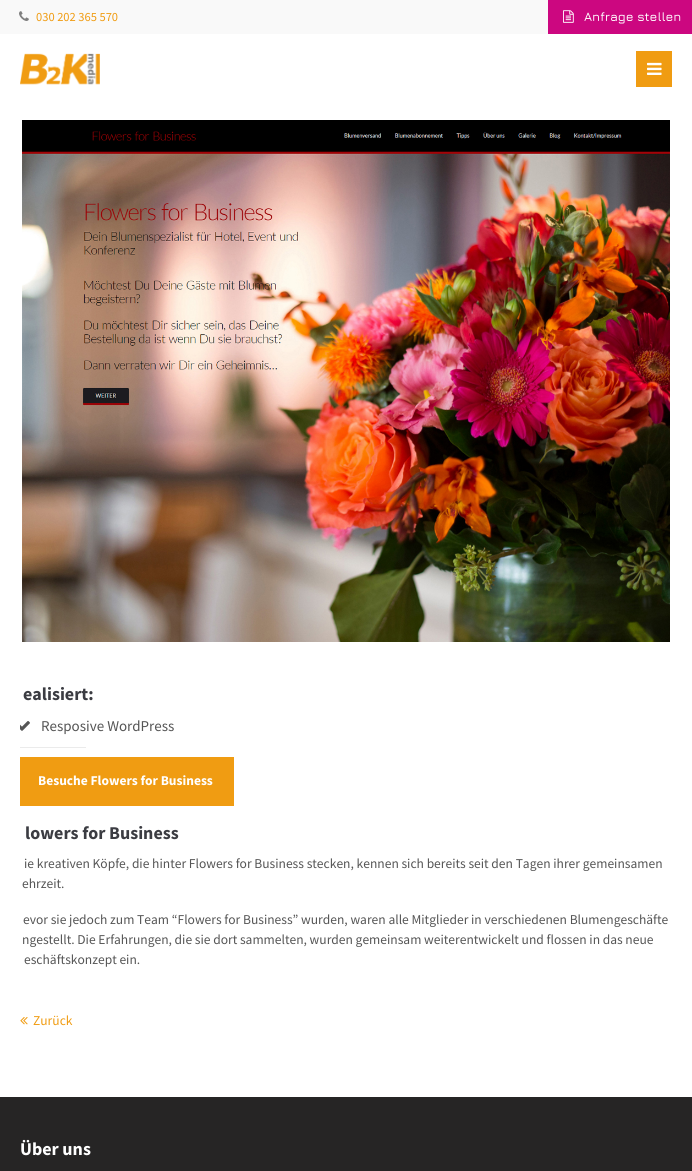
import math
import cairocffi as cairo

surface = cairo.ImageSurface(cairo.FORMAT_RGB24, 692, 1171)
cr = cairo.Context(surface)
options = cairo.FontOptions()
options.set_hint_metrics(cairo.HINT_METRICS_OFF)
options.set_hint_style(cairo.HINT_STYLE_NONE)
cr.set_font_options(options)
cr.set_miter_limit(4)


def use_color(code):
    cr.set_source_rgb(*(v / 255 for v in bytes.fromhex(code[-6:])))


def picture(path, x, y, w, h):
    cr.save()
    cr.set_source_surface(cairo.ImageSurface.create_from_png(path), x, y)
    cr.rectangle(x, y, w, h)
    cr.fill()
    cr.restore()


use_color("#ffffff")
cr.paint()
use_color("#f9f9f9")
cr.rectangle(0, 0, 548, 34)
cr.fill()
picture("img1.png", 19, 11, 10, 10)
cr.select_font_face("Source Sans Pro")
cr.set_font_size(12.5)
use_color("#f09c12")
cr.move_to(36, 21)
cr.show_text("030 202 365 570")
use_color("#cc0780")
cr.rectangle(548, 0, 144, 34)
cr.fill()
picture("img2.png", 563, 10, 11, 13)
cr.select_font_face("Jura SemiBold")
use_color("#ffffff")
cr.move_to(584, 21)
cr.show_text("Anfrage stellen")
picture("img3.png", 22, 120, 648, 522)
cr.select_font_face("Source Sans Pro", cairo.FONT_SLANT_NORMAL, cairo.FONT_WEIGHT_BOLD)
cr.set_font_size(18)
use_color("#3b3c42")
cr.move_to(23, 700)
cr.show_text("ealisiert:")
picture("img4.png", 20, 721, 10, 10)
cr.select_font_face("Source Sans Pro")
cr.set_font_size(15)
use_color("#555555")
cr.move_to(41, 731)
cr.show_text("Resposive WordPress")
use_color("#ebebeb")
cr.rectangle(20, 747, 66, 1)
cr.fill()
use_color("#f09c12")
cr.rectangle(20, 757, 214, 49)
cr.fill()
cr.select_font_face("Source Sans Pro", cairo.FONT_SLANT_NORMAL, cairo.FONT_WEIGHT_BOLD)
cr.set_font_size(13.5)
use_color("#ffffff")
cr.move_to(38, 785)
cr.show_text("Besuche Flowers for Business")
cr.set_font_size(18)
use_color("#3b3c42")
cr.move_to(25, 839)
cr.show_text("lowers for Business")
cr.select_font_face("Source Sans Pro")
cr.set_font_size(13.5)
use_color("#555555")
cr.move_to(24, 868)
cr.show_text("ie kreativen Köpfe, die hinter Flowers for Business stecken, kennen sich bereits seit den Tagen ihrer gemeinsamen")
cr.move_to(22, 888)
cr.show_text("ehrzeit.")
cr.move_to(23, 924)
cr.show_text("evor sie jedoch zum Team “Flowers for Business” wurden, waren alle Mitglieder in verschiedenen Blumengeschäfte")
cr.move_to(22, 944)
cr.show_text("ngestellt. Die Erfahrungen, die sie dort sammelten, wurden gemeinsam weiterentwickelt und flossen in das neue")
cr.move_to(24, 964)
cr.show_text("eschäftskonzept ein.")
picture("img5.png", 20, 1017, 8, 8)
use_color("#f09c12")
cr.move_to(33, 1025)
cr.show_text("Zurück")
use_color("#262525")
cr.rectangle(0, 1097, 692, 74)
cr.fill()
cr.select_font_face("Source Sans Pro", cairo.FONT_SLANT_NORMAL, cairo.FONT_WEIGHT_BOLD)
cr.set_font_size(18)
use_color("#ffffff")
cr.move_to(20, 1155)
cr.show_text("Über uns")
picture("img6.png", 20, 53, 80, 32)
use_color("#f09c12")
cr.rectangle(636, 51, 36, 36)
cr.fill()
picture("img7.png", 647, 62, 15, 13)
surface.write_to_png("result.png")
